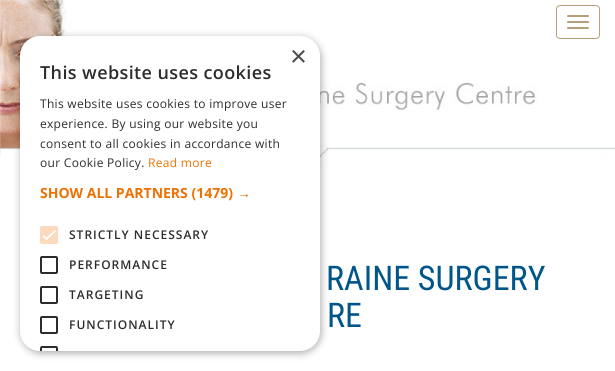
import math
import cairocffi as cairo

surface = cairo.ImageSurface(cairo.FORMAT_RGB24, 615, 371)
cr = cairo.Context(surface)
options = cairo.FontOptions()
options.set_hint_metrics(cairo.HINT_METRICS_OFF)
options.set_hint_style(cairo.HINT_STYLE_NONE)
cr.set_font_options(options)
cr.set_miter_limit(4)


def use_color(code):
    cr.set_source_rgb(*(v / 255 for v in bytes.fromhex(code[-6:])))


def spaced_text(x, y, s, letter, word):
    cr.move_to(x, y)
    for ch in s:
        cr.show_text(ch)
        cr.rel_move_to(letter + word * (ch == ' '), 0)


def round_rect(x, y, w, h, r):
    cr.new_sub_path()
    for i, (u, v) in enumerate([(x + w - r, y + h - r), (x + r, y + h - r), (x + r, y + r), (x + w - r, y + r)]):
        cr.arc(u, v, r, i * math.pi / 2, (i + 1) * math.pi / 2)
    cr.close_path()


def shadow(x, y, w, h, r, blur, alpha):
    cr.push_group_with_content(cairo.CONTENT_ALPHA)
    cr.set_operator(cairo.OPERATOR_SOURCE)
    for i in range(15, -16, -2):
        e = blur * i / 6
        if min(w, h) + 2 * e > 0:
            cr.set_source_rgba(0, 0, 0, alpha * math.erfc((i - 1) / 8.5) / 2)
            round_rect(x - e, y - e, w + 2 * e, h + 2 * e, max(0, min(r + e + blur * .6, min(w, h) / 2 + e)))
            cr.fill()
    cr.mask(cr.pop_group())


def picture(path, x, y, w, h):
    cr.save()
    cr.set_source_surface(cairo.ImageSurface.create_from_png(path), x, y)
    cr.rectangle(x, y, w, h)
    cr.fill()
    cr.restore()


use_color("#ffffff")
cr.paint()
picture("img1.png", 0, 0, 615, 170)
round_rect(556.5, 5.5, 43, 33, 3.5)
use_color("#b79f7b")
cr.set_line_width(1)
cr.stroke()
round_rect(567, 15, 22, 2, 1)
cr.fill()
round_rect(567, 21, 22, 2, 1)
cr.fill()
round_rect(567, 27, 22, 2, 1)
cr.fill()
use_color("#000000")
shadow(21, 38, 300, 315, 20, 4, 0.35)
use_color("#ffffff")
round_rect(20, 36, 300, 315, 20)
cr.fill()
cr.select_font_face("Liberation Sans")
cr.set_font_size(29)
use_color("#4d4d4d")
cr.move_to(290, 66)
cr.show_text("×")
cr.select_font_face("Open Sans SemiBold")
cr.set_font_size(18)
use_color("#2d2d2d")
spaced_text(40, 79, "This website uses cookies", 0.4, 0)
cr.select_font_face("Open Sans")
cr.set_font_size(12)
spaced_text(40, 108, "This website uses cookies to improve user", 0.3, 0)
spaced_text(40, 128, "experience. By using our website you", 0.3, 0)
spaced_text(40, 148, "consent to all cookies in accordance with", 0.3, 0)
spaced_text(40, 167, "our Cookie Policy.", 0.3, 0)
use_color("#ef7103")
spaced_text(148, 167, "Read more", 0.3, 0)
cr.select_font_face("Open Sans", cairo.FONT_SLANT_NORMAL, cairo.FONT_WEIGHT_BOLD)
cr.set_font_size(14)
cr.move_to(40, 198)
cr.show_text("SHOW ALL PARTNERS (1479)")
cr.select_font_face("Liberation Sans", cairo.FONT_SLANT_NORMAL, cairo.FONT_WEIGHT_BOLD)
cr.move_to(237, 198)
cr.show_text("→")
use_color("#fbdabd")
round_rect(40, 226, 18, 18, 2)
cr.fill()
cr.new_path()
cr.move_to(43, 235.5)
cr.line_to(46.5, 239)
cr.line_to(55.5, 230.5)
use_color("#ffffff")
cr.set_line_width(1.8)
cr.stroke()
cr.select_font_face("Open Sans SemiBold")
cr.set_font_size(12)
use_color("#2d2d2d")
spaced_text(69, 239, "STRICTLY NECESSARY", 1, 0)
round_rect(41, 257, 16, 16, 1)
cr.set_line_width(2)
cr.stroke()
spaced_text(69, 269, "PERFORMANCE", 1, 0)
round_rect(41, 287, 16, 16, 1)
cr.stroke()
spaced_text(69, 299, "TARGETING", 1, 0)
round_rect(41, 317, 16, 16, 1)
cr.stroke()
spaced_text(69, 329, "FUNCTIONALITY", 1, 0)
cr.new_path()
cr.move_to(42, 346)
cr.curve_to(39.5, 346, 40, 349.5, 40, 351)
cr.line_to(42, 351)
cr.line_to(42, 348)
cr.line_to(56, 348)
cr.line_to(56, 351)
cr.line_to(58, 351)
cr.curve_to(58, 349.5, 58.5, 346, 56, 346)
cr.close_path()
cr.fill()
cr.select_font_face("Roboto Condensed")
cr.set_font_size(34)
use_color("#005689")
cr.move_to(326, 290)
cr.show_text("RAINE SURGERY")
cr.move_to(327, 327)
cr.show_text("RE")
surface.write_to_png("result.png")
